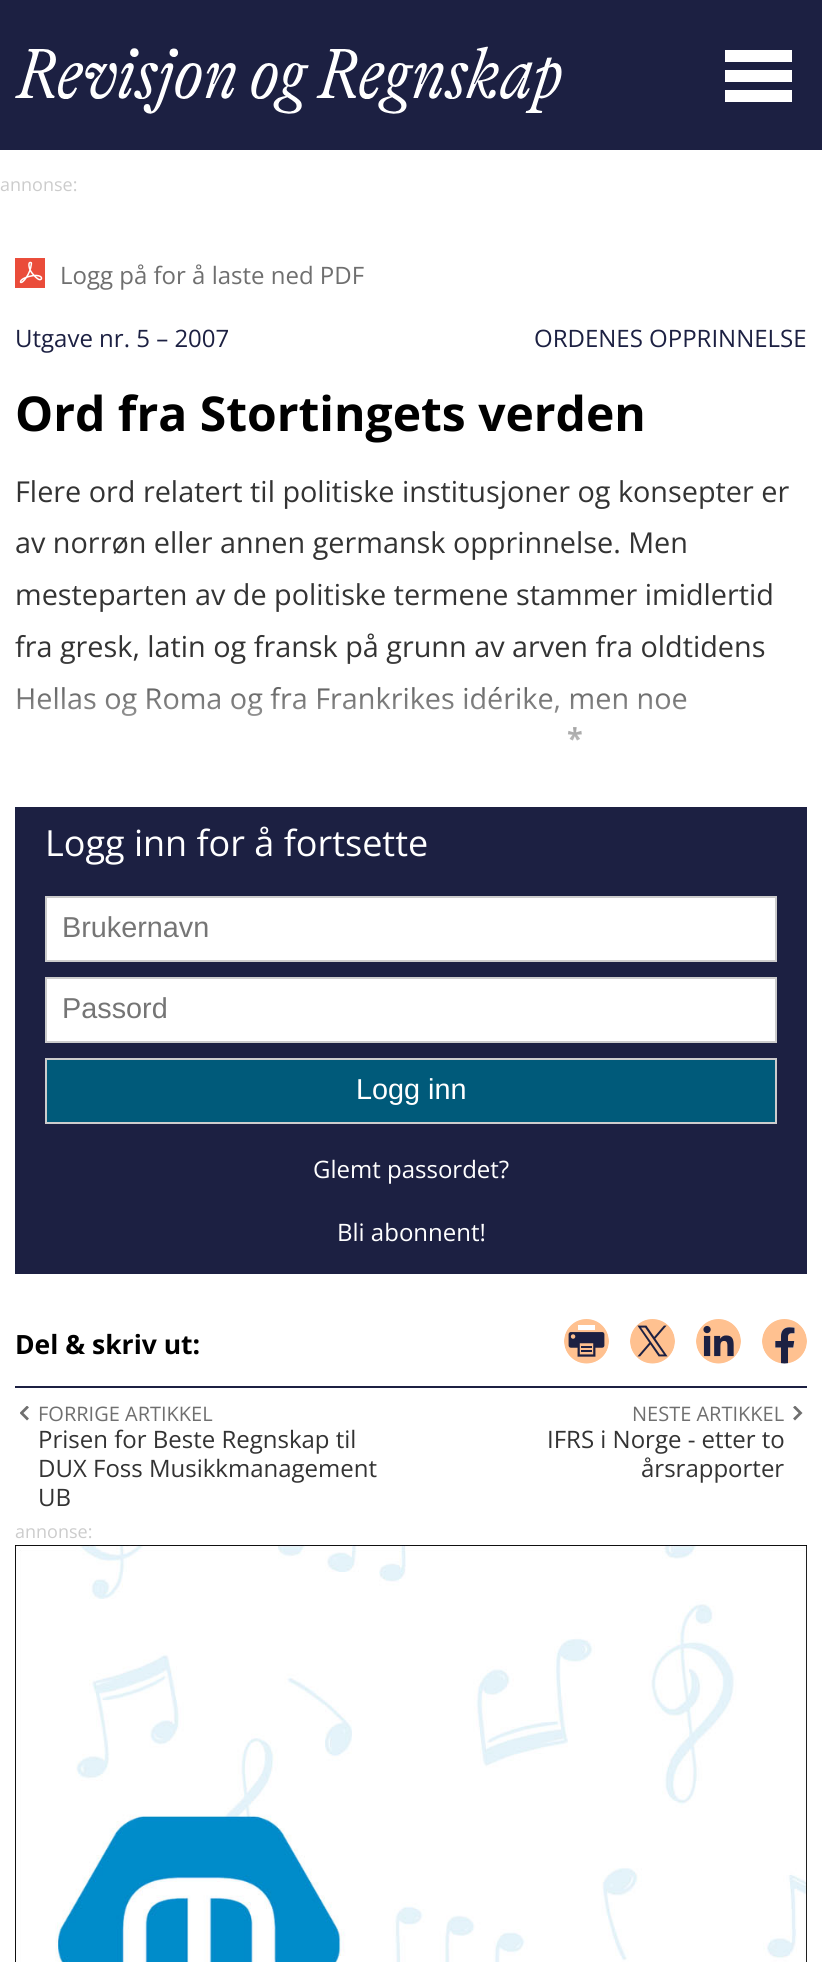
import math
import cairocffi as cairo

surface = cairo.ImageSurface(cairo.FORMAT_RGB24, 822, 1962)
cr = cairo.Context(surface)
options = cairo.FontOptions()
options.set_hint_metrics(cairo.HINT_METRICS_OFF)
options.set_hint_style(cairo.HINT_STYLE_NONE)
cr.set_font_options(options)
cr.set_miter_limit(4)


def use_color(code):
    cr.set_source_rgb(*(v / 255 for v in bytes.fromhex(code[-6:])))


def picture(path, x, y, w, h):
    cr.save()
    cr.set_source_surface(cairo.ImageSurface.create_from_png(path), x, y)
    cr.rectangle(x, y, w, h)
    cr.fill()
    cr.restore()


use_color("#ffffff")
cr.paint()
use_color("#1c2042")
cr.rectangle(0, 0, 822, 150)
cr.fill()
picture("img1.png", 15, 46, 547, 68)
use_color("#ffffff")
cr.rectangle(725, 50, 67, 12)
cr.fill()
cr.rectangle(725, 70, 67, 12)
cr.fill()
cr.rectangle(725, 90, 67, 12)
cr.fill()
cr.select_font_face("Open Sans")
cr.set_font_size(18)
use_color("#cccccc")
cr.move_to(0, 191)
cr.show_text("annonse:")
picture("img2.png", 15, 258, 30, 30)
cr.set_font_size(24)
use_color("#6f6f6f")
cr.move_to(60, 284)
cr.show_text("Logg på for å laste ned PDF")
use_color("#1c2042")
cr.move_to(15, 347)
cr.show_text("Utgave nr. 5 – 2007")
cr.move_to(534, 347)
cr.show_text("ORDENES OPPRINNELSE")
cr.select_font_face("Open Sans", cairo.FONT_SLANT_NORMAL, cairo.FONT_WEIGHT_BOLD)
cr.set_font_size(48)
use_color("#000000")
cr.move_to(15, 431)
cr.show_text("Ord fra Stortingets verden")
cr.select_font_face("Open Sans")
cr.set_font_size(28.8)
use_color("#333333")
cr.move_to(15, 502)
cr.show_text("Flere ord relatert til politiske institusjoner og konsepter er")
cr.move_to(15, 553)
cr.show_text("av norrøn eller annen germansk opprinnelse. Men")
cr.move_to(15, 605)
cr.show_text("mesteparten av de politiske termene stammer imidlertid")
cr.move_to(15, 657)
cr.show_text("fra gresk, latin og fransk på grunn av arven fra oldtidens")
cr.move_to(15, 709)
cr.show_text("Hellas og Roma og fra Frankrikes idérike, men noe")
cr.select_font_face("Open Sans", cairo.FONT_SLANT_NORMAL, cairo.FONT_WEIGHT_BOLD)
cr.move_to(567, 749)
cr.show_text("*")
use_color("#1c2042")
cr.rectangle(15, 807, 792, 467)
cr.fill()
gradient = cairo.LinearGradient(411, 657, 411, 807)
gradient.add_color_stop_rgba(0, 1, 1, 1, 0)
gradient.add_color_stop_rgba(0.85, 1, 1, 1, 1)
cr.set_source(gradient)
cr.rectangle(17, 660, 670, 81)
cr.fill()
cr.select_font_face("Open Sans")
cr.set_font_size(36)
use_color("#ffffff")
cr.move_to(45, 856)
cr.show_text("Logg inn for å fortsette")
cr.rectangle(46, 897, 730, 64)
cr.fill_preserve()
use_color("#cccccc")
cr.stroke()
cr.select_font_face("Liberation Sans")
cr.set_font_size(28.8)
use_color("#757575")
cr.move_to(62, 937)
cr.show_text("Brukernavn")
use_color("#ffffff")
cr.rectangle(46, 978, 730, 64)
cr.fill_preserve()
use_color("#cccccc")
cr.stroke()
use_color("#757575")
cr.move_to(62, 1018)
cr.show_text("Passord")
use_color("#005a7a")
cr.rectangle(46, 1059, 730, 64)
cr.fill_preserve()
use_color("#cccccc")
cr.stroke()
use_color("#ffffff")
cr.move_to(356, 1099)
cr.show_text("Logg inn")
cr.select_font_face("Open Sans")
cr.set_font_size(24)
cr.move_to(313, 1178)
cr.show_text("Glemt passordet?")
cr.move_to(337, 1241)
cr.show_text("Bli abonnent!")
cr.select_font_face("Open Sans", cairo.FONT_SLANT_NORMAL, cairo.FONT_WEIGHT_BOLD)
cr.set_font_size(26.5)
use_color("#000000")
cr.move_to(15, 1354)
cr.show_text("Del & skriv ut:")
picture("img3.png", 564, 1319, 45, 45)
picture("img4.png", 630, 1319, 45, 45)
picture("img5.png", 696, 1319, 45, 45)
picture("img6.png", 762, 1319, 45, 45)
use_color("#1c2042")
cr.rectangle(15, 1386, 792, 2)
cr.fill()
picture("img7.png", 20, 1406, 9, 15)
cr.select_font_face("Open Sans")
cr.set_font_size(20)
use_color("#6f6f6f")
cr.move_to(38, 1421)
cr.show_text("FORRIGE ARTIKKEL")
cr.set_font_size(24)
use_color("#333333")
cr.move_to(38, 1448)
cr.show_text("Prisen for Beste Regnskap til")
cr.move_to(38, 1477)
cr.show_text("DUX Foss Musikkmanagement")
cr.move_to(38, 1506)
cr.show_text("UB")
cr.set_font_size(20)
use_color("#6f6f6f")
cr.move_to(632, 1421)
cr.show_text("NESTE ARTIKKEL")
picture("img8.png", 793, 1406, 10, 15)
cr.set_font_size(24)
use_color("#333333")
cr.move_to(547, 1448)
cr.show_text("IFRS i Norge - etter to")
cr.move_to(641, 1477)
cr.show_text("årsrapporter")
cr.set_font_size(18)
use_color("#cccccc")
cr.move_to(15, 1538)
cr.show_text("annonse:")
picture("img9.png", 15, 1545, 792, 417)
surface.write_to_png("result.png")
